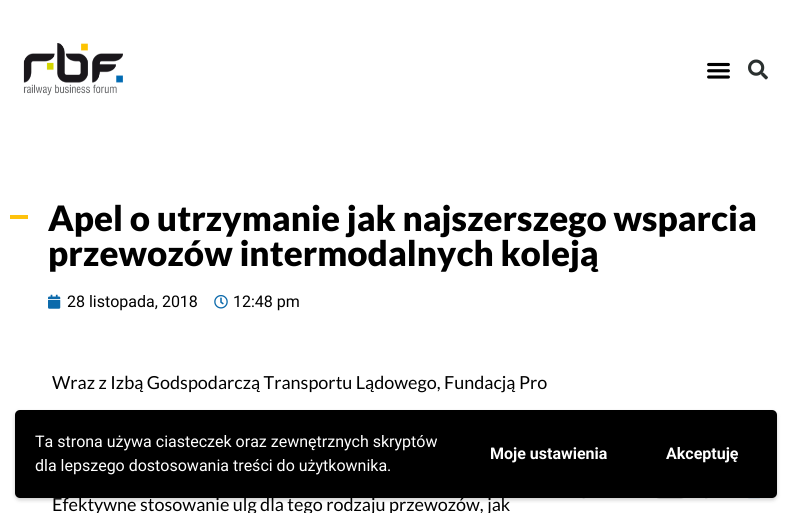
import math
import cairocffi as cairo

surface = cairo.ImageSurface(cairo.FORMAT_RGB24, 792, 513)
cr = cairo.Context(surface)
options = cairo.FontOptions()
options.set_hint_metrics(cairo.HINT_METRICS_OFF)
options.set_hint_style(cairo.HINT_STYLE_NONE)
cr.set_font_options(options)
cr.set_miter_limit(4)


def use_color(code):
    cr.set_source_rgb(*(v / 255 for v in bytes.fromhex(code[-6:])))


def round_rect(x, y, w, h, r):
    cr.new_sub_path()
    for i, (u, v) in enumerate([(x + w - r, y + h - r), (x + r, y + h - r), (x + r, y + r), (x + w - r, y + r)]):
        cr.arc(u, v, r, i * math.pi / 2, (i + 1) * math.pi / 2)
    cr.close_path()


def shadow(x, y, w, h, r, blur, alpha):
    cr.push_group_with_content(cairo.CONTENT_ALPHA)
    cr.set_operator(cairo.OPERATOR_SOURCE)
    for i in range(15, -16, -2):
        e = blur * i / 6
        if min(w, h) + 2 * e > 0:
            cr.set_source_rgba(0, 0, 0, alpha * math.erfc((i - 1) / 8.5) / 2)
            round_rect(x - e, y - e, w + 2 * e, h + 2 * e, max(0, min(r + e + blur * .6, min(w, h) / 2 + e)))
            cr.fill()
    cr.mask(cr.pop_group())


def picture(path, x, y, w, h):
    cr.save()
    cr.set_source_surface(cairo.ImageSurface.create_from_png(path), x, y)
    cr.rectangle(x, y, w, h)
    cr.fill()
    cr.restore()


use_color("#ffffff")
cr.paint()
picture("img1.png", 23, 43, 100, 53)
picture("img2.png", 707, 62, 23, 17)
picture("img3.png", 748, 59, 20, 21)
use_color("#fec20d")
cr.rectangle(10, 215, 18, 4)
cr.fill()
cr.select_font_face("Lato Black")
cr.set_font_size(35)
use_color("#000000")
cr.move_to(48, 231)
cr.show_text("Apel o utrzymanie jak najszerszego wsparcia")
cr.move_to(48, 266)
cr.show_text("przewozów intermodalnych koleją")
picture("img4.png", 48, 294, 13, 15)
cr.select_font_face("Roboto")
cr.set_font_size(16)
cr.move_to(67, 307)
cr.show_text("28 listopada, 2018")
picture("img5.png", 214, 295, 14, 14)
cr.move_to(233, 307)
cr.show_text("12:48 pm")
cr.select_font_face("Lato")
cr.set_font_size(18)
cr.move_to(52, 389)
cr.show_text("Wraz z Izbą Godspodarczą Transportu Lądowego, Fundacją Pro")
cr.move_to(52, 511)
cr.show_text("Efektywne stosowanie ulg dla tego rodzaju przewozów, jak")
picture("img6.png", 582, 498, 178, 1)
use_color("#000000")
shadow(15, 412, 762, 88, 5, 2, 0.2)
use_color("#000000")
round_rect(15, 410, 762, 88, 5)
cr.fill()
cr.select_font_face("Roboto")
cr.set_font_size(16)
use_color("#ffffff")
cr.move_to(35, 447)
cr.show_text("Ta strona używa ciasteczek oraz zewnętrznych skryptów")
cr.move_to(35, 471)
cr.show_text("dla lepszego dostosowania treści do użytkownika.")
cr.select_font_face("Roboto", cairo.FONT_SLANT_NORMAL, cairo.FONT_WEIGHT_BOLD)
cr.move_to(490, 459)
cr.show_text("Moje ustawienia")
cr.move_to(666, 459)
cr.show_text("Akceptuję")
surface.write_to_png("result.png")
